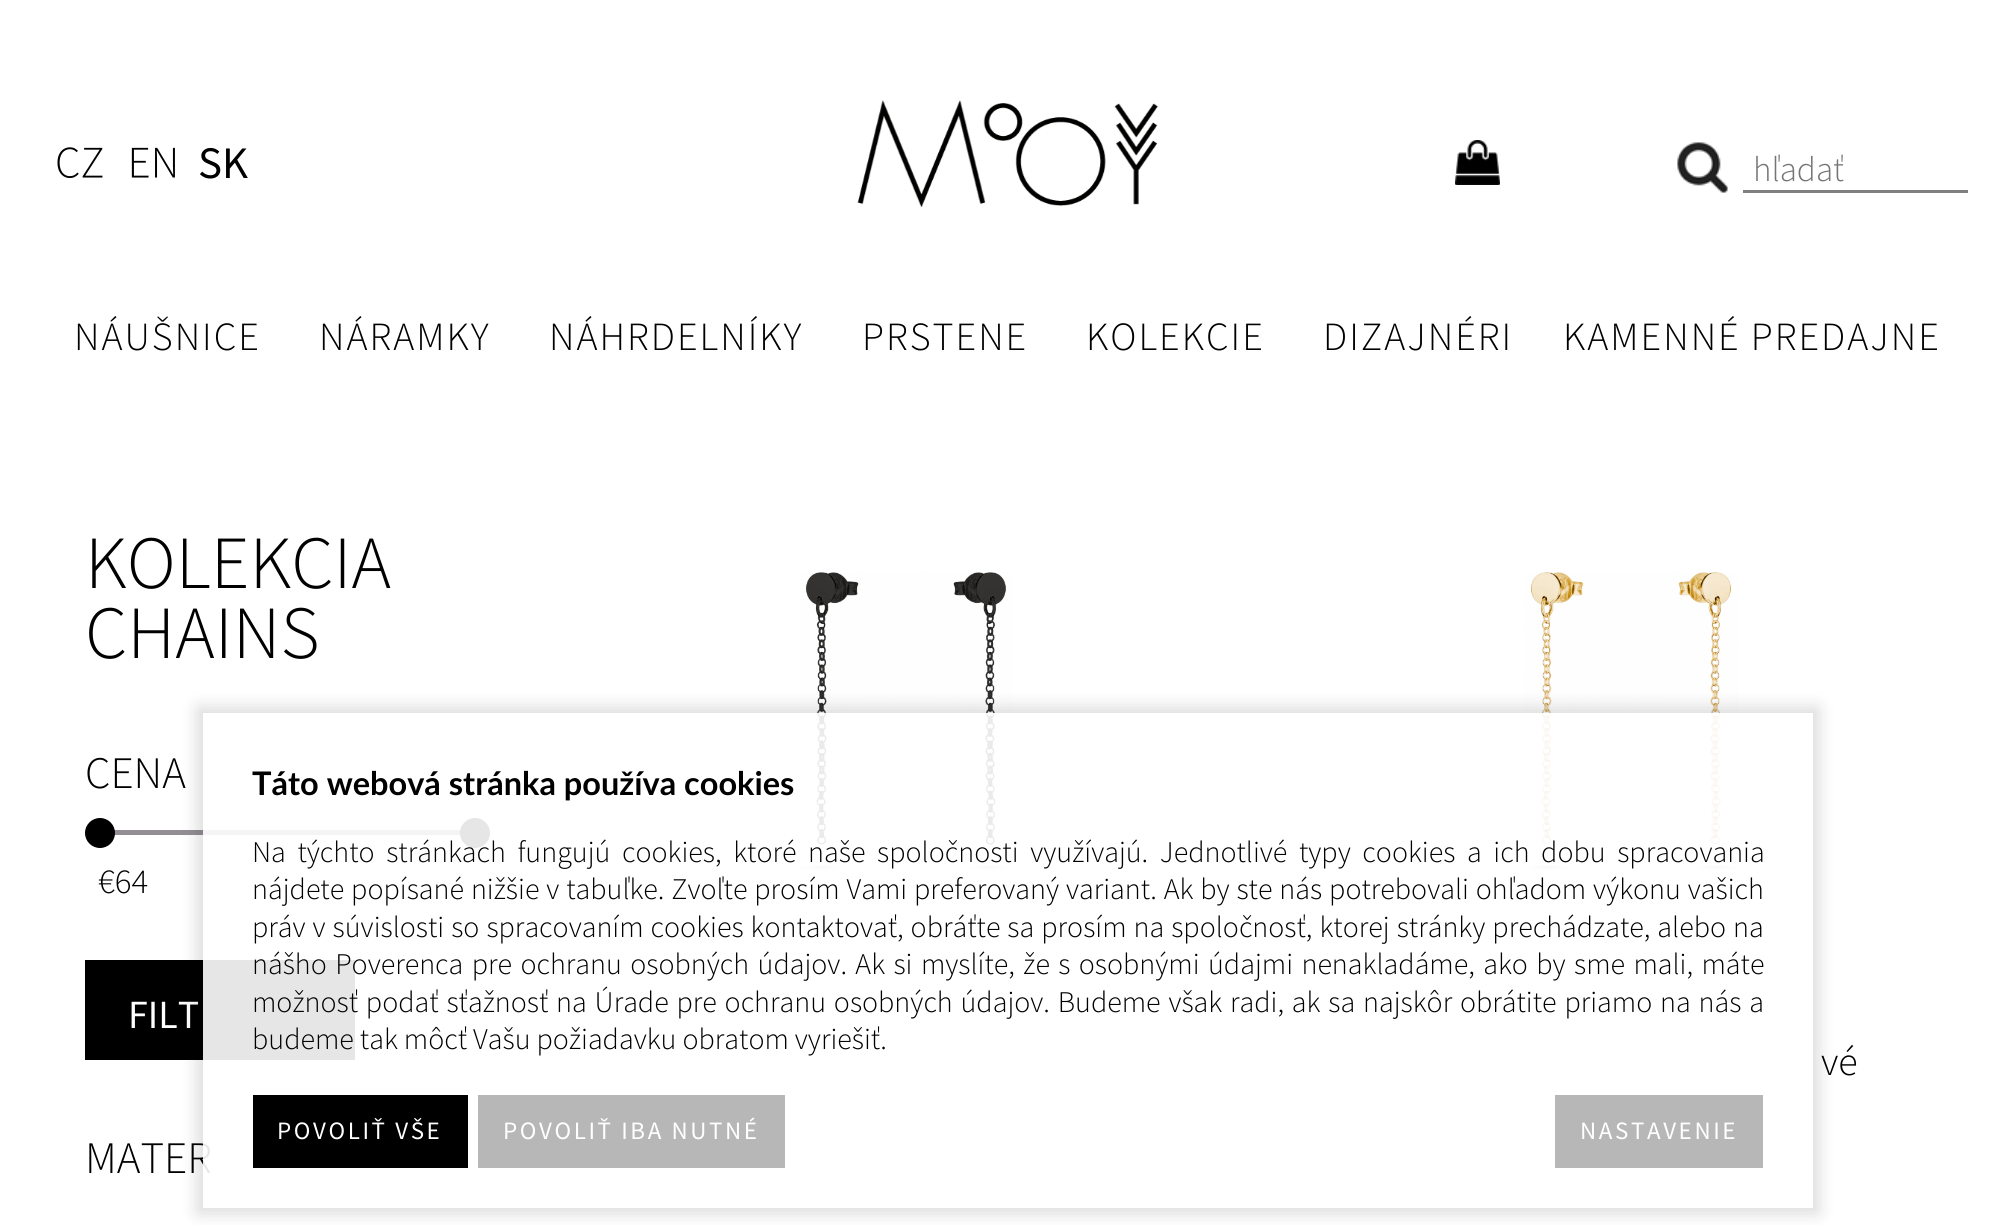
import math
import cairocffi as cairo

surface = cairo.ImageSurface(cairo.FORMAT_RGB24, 2015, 1225)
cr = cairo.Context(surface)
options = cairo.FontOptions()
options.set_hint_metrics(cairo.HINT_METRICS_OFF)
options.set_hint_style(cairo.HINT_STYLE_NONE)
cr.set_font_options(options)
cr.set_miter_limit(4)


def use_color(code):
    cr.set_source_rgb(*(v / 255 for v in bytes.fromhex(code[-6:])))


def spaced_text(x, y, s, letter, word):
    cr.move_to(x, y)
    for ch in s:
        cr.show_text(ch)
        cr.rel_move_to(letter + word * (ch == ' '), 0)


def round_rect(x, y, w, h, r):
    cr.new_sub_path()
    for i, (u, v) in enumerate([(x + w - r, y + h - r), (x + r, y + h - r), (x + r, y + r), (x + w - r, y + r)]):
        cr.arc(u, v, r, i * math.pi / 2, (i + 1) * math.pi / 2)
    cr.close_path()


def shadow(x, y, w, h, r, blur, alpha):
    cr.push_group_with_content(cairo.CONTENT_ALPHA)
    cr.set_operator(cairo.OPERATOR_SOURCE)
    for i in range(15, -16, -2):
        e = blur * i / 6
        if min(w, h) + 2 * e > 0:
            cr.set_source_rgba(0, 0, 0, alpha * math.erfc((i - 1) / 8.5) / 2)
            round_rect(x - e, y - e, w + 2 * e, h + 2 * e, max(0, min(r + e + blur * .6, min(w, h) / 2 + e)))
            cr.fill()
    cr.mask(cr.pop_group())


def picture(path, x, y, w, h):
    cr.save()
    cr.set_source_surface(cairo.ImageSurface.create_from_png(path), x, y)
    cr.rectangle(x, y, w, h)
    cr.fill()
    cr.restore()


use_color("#ffffff")
cr.paint()
picture("img1.png", 57, 147, 46, 31)
picture("img2.png", 131, 147, 44, 31)
cr.select_font_face("Source Sans Pro")
cr.set_font_size(45)
use_color("#000000")
cr.move_to(198, 178)
cr.show_text("SK")
picture("img3.png", 857, 100, 301, 108)
picture("img4.png", 1455, 140, 45, 45)
picture("img5.png", 1677, 142, 51, 51)
use_color("#7f7f7f")
cr.rectangle(1743, 190, 225, 3)
cr.fill()
cr.select_font_face("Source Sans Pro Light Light")
cr.set_font_size(35)
use_color("#757575")
cr.move_to(1753, 181)
cr.show_text("hľadať")
cr.set_font_size(40)
use_color("#000000")
spaced_text(74, 350, "NÁUŠNICE", 2, 0)
spaced_text(319, 350, "NÁRAMKY", 2, 0)
spaced_text(549, 350, "NÁHRDELNÍKY", 2, 0)
spaced_text(862, 350, "PRSTENE", 2, 0)
spaced_text(1086, 350, "KOLEKCIE", 2, 0)
spaced_text(1323, 350, "DIZAJNÉRI", 2, 0)
spaced_text(1563, 350, "KAMENNÉ PREDAJNE", 2, 0)
cr.set_font_size(75)
cr.move_to(85, 588)
cr.show_text("KOLEKCIA")
cr.move_to(85, 658)
cr.show_text("CHAINS")
cr.set_font_size(45)
cr.move_to(85, 788)
cr.show_text("CENA")
use_color("#938e94")
cr.rectangle(114, 830, 347, 5)
cr.fill()
use_color("#000000")
cr.arc(100, 833, 15, 0, 2 * math.pi)
cr.fill()
cr.arc(475, 833, 15, 0, 2 * math.pi)
cr.fill()
cr.set_font_size(35)
cr.move_to(98, 893)
cr.show_text("€64")
cr.rectangle(85, 960, 270, 100)
cr.fill()
cr.select_font_face("Source Sans Pro")
cr.set_font_size(40)
use_color("#ffffff")
cr.move_to(128, 1028)
cr.show_text("FILT")
cr.select_font_face("Source Sans Pro Light Light")
cr.set_font_size(45)
use_color("#000000")
cr.move_to(85, 1173)
cr.show_text("MATER")
picture("img6.png", 799, 572, 214, 299)
picture("img7.png", 1524, 572, 214, 299)
cr.set_font_size(40)
cr.move_to(1821, 1075)
cr.show_text("vé")
cr.save()
cr.set_fill_rule(cairo.FILL_RULE_EVEN_ODD)
cr.new_path()
cr.move_to(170, 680)
cr.line_to(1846, 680)
cr.line_to(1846, 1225)
cr.line_to(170, 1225)
cr.close_path()
cr.move_to(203, 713)
cr.line_to(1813, 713)
cr.line_to(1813, 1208)
cr.line_to(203, 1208)
cr.close_path()
cr.clip()
use_color("#000000")
shadow(198, 708, 1620, 505, 0, 9, 0.15)
cr.restore()
cr.set_source_rgba(1, 1, 1, 0.9)
cr.rectangle(203, 713, 1610, 495)
cr.fill()
cr.select_font_face("Lato", cairo.FONT_SLANT_NORMAL, cairo.FONT_WEIGHT_BOLD)
cr.set_font_size(32.5)
use_color("#000000")
cr.move_to(252, 795)
cr.show_text("Táto webová stránka používa cookies")
cr.select_font_face("Source Sans Pro Light Light")
cr.set_font_size(30)
spaced_text(252, 862, "Na týchto stránkach fungujú cookies, ktoré naše spoločnosti využívajú. Jednotlivé typy cookies a ich dobu spracovania", 0, 5.6)
spaced_text(252, 899, "nájdete popísané nižšie v tabuľke. Zvoľte prosím Vami preferovaný variant. Ak by ste nás potrebovali ohľadom výkonu vašich", 0, 0.9)
spaced_text(252, 937, "práv v súvislosti so spracovaním cookies kontaktovať, obráťte sa prosím na spoločnosť, ktorej stránky prechádzate, alebo na", 0, 1)
spaced_text(252, 974, "nášho Poverenca pre ochranu osobných údajov. Ak si myslíte, že s osobnými údajmi nenakladáme, ako by sme mali, máte", 0, 2.4)
spaced_text(252, 1012, "možnosť podať sťažnosť na Úrade pre ochranu osobných údajov. Budeme však radi, ak sa najskôr obrátite priamo na nás a", 0, 1.8)
cr.move_to(252, 1049)
cr.show_text("budeme tak môcť Vašu požiadavku obratom vyriešiť.")
cr.rectangle(253, 1095, 215, 73)
cr.fill()
cr.select_font_face("Source Sans Pro")
cr.set_font_size(25)
use_color("#ffffff")
spaced_text(277, 1139, "POVOLIŤ VŠE", 2.6, 0)
use_color("#b7b7b7")
cr.rectangle(478, 1095, 307, 73)
cr.fill()
use_color("#ffffff")
spaced_text(503, 1139, "POVOLIŤ IBA NUTNÉ", 2.6, 0)
use_color("#b7b7b7")
cr.rectangle(1555, 1095, 208, 73)
cr.fill()
use_color("#ffffff")
spaced_text(1580, 1139, "NASTAVENIE", 2.6, 0)
surface.write_to_png("result.png")
